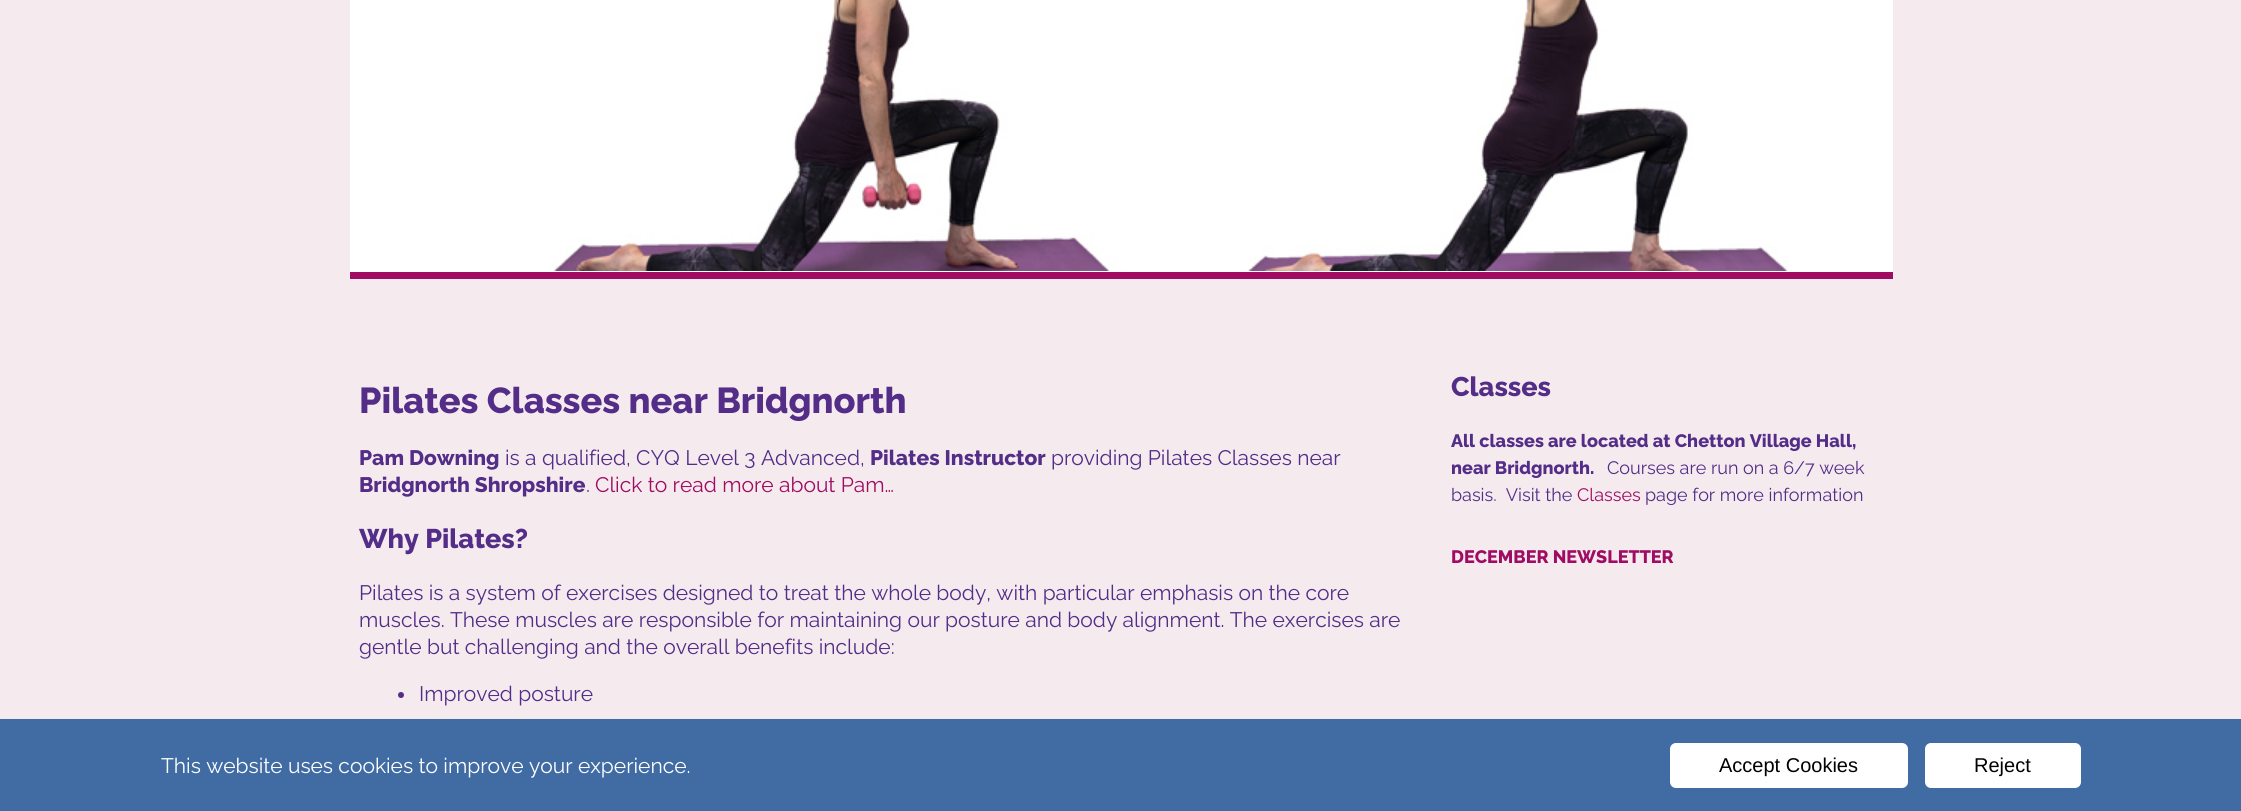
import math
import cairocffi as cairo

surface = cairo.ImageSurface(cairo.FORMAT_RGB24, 2241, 811)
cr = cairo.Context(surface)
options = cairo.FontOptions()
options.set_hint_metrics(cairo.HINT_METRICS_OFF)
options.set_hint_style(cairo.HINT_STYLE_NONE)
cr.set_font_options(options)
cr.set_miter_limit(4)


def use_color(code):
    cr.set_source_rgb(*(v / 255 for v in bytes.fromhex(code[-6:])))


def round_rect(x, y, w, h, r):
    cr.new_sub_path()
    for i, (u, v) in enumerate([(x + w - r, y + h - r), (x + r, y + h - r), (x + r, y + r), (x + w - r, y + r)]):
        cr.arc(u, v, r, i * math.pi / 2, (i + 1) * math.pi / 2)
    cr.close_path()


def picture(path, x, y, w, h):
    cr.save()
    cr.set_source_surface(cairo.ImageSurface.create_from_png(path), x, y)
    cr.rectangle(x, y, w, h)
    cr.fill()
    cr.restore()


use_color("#f5ebef")
cr.paint()
use_color("#9f0c62")
cr.rectangle(350, 272, 1543, 7)
cr.fill()
use_color("#ffffff")
cr.rectangle(350, 0, 1543, 272)
cr.fill()
picture("img1.png", 553, 0, 1235, 271)
cr.select_font_face("Raleway ExtraBold")
cr.set_font_size(36)
use_color("#532d87")
cr.move_to(359, 413)
cr.show_text("Pilates Classes near Bridgnorth")
cr.set_font_size(21)
cr.move_to(359, 465)
cr.show_text("Pam Downing")
cr.select_font_face("Raleway")
cr.move_to(505, 465)
cr.show_text("is a qualified, CYQ Level 3 Advanced,")
cr.select_font_face("Raleway ExtraBold")
cr.move_to(870, 465)
cr.show_text("Pilates Instructor")
cr.select_font_face("Raleway")
cr.move_to(1051, 465)
cr.show_text("providing Pilates Classes near")
cr.select_font_face("Raleway ExtraBold")
cr.move_to(359, 492)
cr.show_text("Bridgnorth Shropshire")
cr.select_font_face("Raleway")
cr.move_to(586, 492)
cr.show_text(".")
use_color("#9f0c62")
cr.move_to(595, 492)
cr.show_text("Click to read more about Pam…")
cr.select_font_face("Raleway ExtraBold")
cr.set_font_size(27)
use_color("#532d87")
cr.move_to(359, 548)
cr.show_text("Why Pilates?")
cr.select_font_face("Raleway")
cr.set_font_size(21)
cr.move_to(359, 600)
cr.show_text("Pilates is a system of exercises designed to treat the whole body, with particular emphasis on the core")
cr.move_to(359, 627)
cr.show_text("muscles. These muscles are responsible for maintaining our posture and body alignment. The exercises are")
cr.move_to(359, 654)
cr.show_text("gentle but challenging and the overall benefits include:")
cr.new_path()
cr.arc(401, 695, 3, 0, 2 * math.pi)
cr.fill()
cr.move_to(419, 701)
cr.show_text("Improved posture")
cr.select_font_face("Raleway ExtraBold")
cr.set_font_size(27)
cr.move_to(1451, 396)
cr.show_text("Classes")
cr.set_font_size(18)
cr.move_to(1451, 447)
cr.show_text("All classes are located at Chetton Village Hall,")
cr.move_to(1451, 474)
cr.show_text("near Bridgnorth.")
cr.select_font_face("Raleway")
cr.move_to(1607, 474)
cr.show_text("Courses are run on a 6/7 week")
cr.move_to(1451, 501)
cr.show_text("basis.  Visit the")
use_color("#9f0c62")
cr.move_to(1577, 501)
cr.show_text("Classes")
use_color("#532d87")
cr.move_to(1645, 501)
cr.show_text("page for more information")
cr.select_font_face("Raleway ExtraBold")
use_color("#9f0c62")
cr.move_to(1451, 563)
cr.show_text("DECEMBER NEWSLETTER")
use_color("#406ca3")
cr.rectangle(0, 719, 2241, 92)
cr.fill()
cr.select_font_face("Raleway")
cr.set_font_size(21)
use_color("#ffffff")
cr.move_to(161, 773)
cr.show_text("This website uses cookies to improve your experience.")
round_rect(1671, 744, 236, 43, 5)
cr.fill_preserve()
cr.stroke()
cr.select_font_face("Liberation Sans")
cr.set_font_size(20)
use_color("#000000")
cr.move_to(1719, 772)
cr.show_text("Accept Cookies")
use_color("#ffffff")
round_rect(1926, 744, 154, 43, 5)
cr.fill_preserve()
cr.stroke()
use_color("#000000")
cr.move_to(1974, 772)
cr.show_text("Reject")
surface.write_to_png("result.png")
